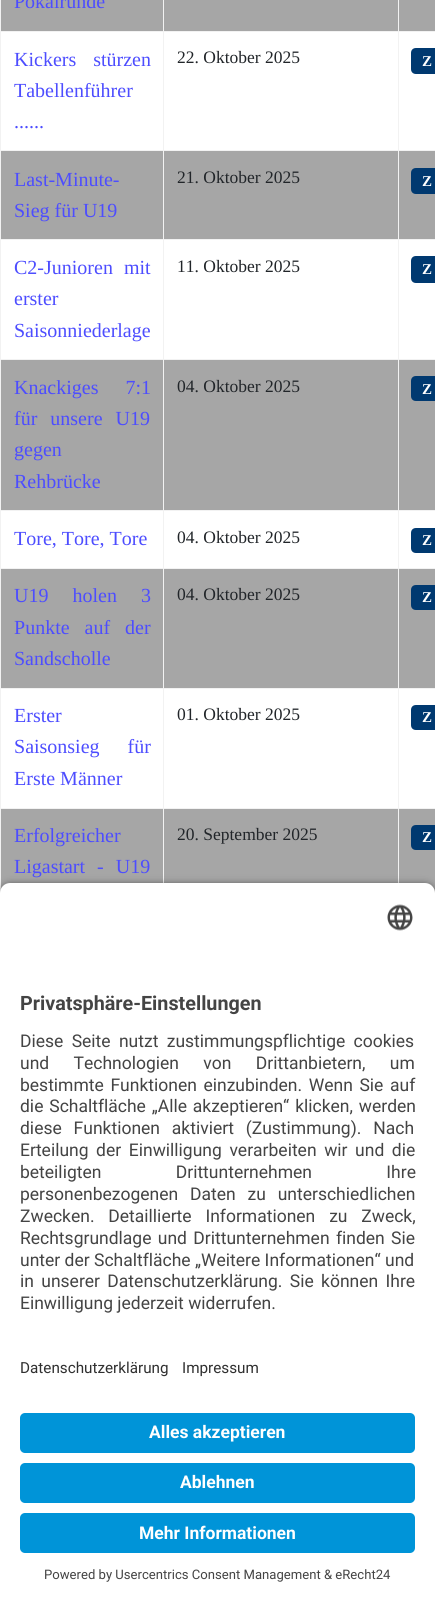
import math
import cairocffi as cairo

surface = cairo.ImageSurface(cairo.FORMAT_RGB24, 435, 1602)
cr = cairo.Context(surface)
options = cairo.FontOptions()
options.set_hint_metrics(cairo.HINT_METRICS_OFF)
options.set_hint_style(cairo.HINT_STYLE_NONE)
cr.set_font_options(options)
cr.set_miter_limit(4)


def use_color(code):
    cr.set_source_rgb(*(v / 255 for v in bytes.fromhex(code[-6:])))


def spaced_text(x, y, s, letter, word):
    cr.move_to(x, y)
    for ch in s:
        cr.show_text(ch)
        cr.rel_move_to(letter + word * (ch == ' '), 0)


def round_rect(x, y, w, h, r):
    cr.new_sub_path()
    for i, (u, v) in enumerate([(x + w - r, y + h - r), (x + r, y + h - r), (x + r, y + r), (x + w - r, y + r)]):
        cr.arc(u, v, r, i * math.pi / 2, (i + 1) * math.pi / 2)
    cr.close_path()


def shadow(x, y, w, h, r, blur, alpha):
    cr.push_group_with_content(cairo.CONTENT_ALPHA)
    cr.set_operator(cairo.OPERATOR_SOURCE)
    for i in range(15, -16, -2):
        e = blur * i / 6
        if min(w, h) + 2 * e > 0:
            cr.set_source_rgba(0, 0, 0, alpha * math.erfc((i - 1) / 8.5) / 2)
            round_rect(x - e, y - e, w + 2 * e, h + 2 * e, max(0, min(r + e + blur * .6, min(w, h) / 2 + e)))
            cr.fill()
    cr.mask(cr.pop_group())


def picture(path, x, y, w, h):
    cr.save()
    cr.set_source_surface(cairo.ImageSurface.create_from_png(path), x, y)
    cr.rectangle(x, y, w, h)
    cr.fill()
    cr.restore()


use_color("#ffffff")
cr.paint()
use_color("#a6a6a6")
cr.rectangle(1, 0, 434, 31)
cr.fill()
cr.select_font_face("Liberation Serif")
cr.set_font_size(20)
use_color("#4d4dff")
cr.move_to(14, 8)
cr.show_text("Pokalrunde")
use_color("#f2f2f2")
cr.rectangle(0, 31, 435, 1)
cr.fill()
cr.rectangle(0, 150, 435, 1)
cr.fill()
cr.rectangle(0, 239, 435, 1)
cr.fill()
cr.rectangle(0, 359, 435, 1)
cr.fill()
cr.rectangle(0, 510, 435, 1)
cr.fill()
cr.rectangle(0, 568, 435, 1)
cr.fill()
cr.rectangle(0, 688, 435, 1)
cr.fill()
cr.rectangle(0, 808, 435, 1)
cr.fill()
cr.rectangle(0, 808, 1, 85)
cr.fill()
cr.rectangle(0, 688, 1, 121)
cr.fill()
cr.rectangle(0, 568, 1, 121)
cr.fill()
cr.rectangle(0, 510, 1, 59)
cr.fill()
cr.rectangle(0, 359, 1, 152)
cr.fill()
cr.rectangle(0, 239, 1, 121)
cr.fill()
cr.rectangle(0, 150, 1, 90)
cr.fill()
cr.rectangle(0, 0, 1, 151)
cr.fill()
use_color("#4d4dff")
spaced_text(14, 66, "Kickers stürzen", 0, 12)
cr.move_to(14, 97)
cr.show_text("Tabellenführer")
cr.move_to(14, 128)
cr.show_text("......")
cr.set_font_size(17.5)
use_color("#212529")
cr.move_to(177, 63)
cr.show_text("22. Oktober 2025")
use_color("#003970")
cr.new_path()
cr.move_to(416, 48)
cr.line_to(435, 48)
cr.line_to(435, 74)
cr.line_to(416, 74)
cr.curve_to(413, 74, 411, 72, 411, 69)
cr.line_to(411, 53)
cr.curve_to(411, 50, 413, 48, 416, 48)
cr.close_path()
cr.fill()
cr.select_font_face("Liberation Serif", cairo.FONT_SLANT_NORMAL, cairo.FONT_WEIGHT_BOLD)
cr.set_font_size(15)
use_color("#ffffff")
cr.move_to(422, 66)
cr.show_text("Z")
use_color("#a6a6a6")
cr.rectangle(1, 151, 434, 88)
cr.fill()
cr.select_font_face("Liberation Serif")
cr.set_font_size(20)
use_color("#4d4dff")
cr.move_to(14, 186)
cr.show_text("Last-Minute-")
cr.move_to(14, 217)
cr.show_text("Sieg für U19")
cr.set_font_size(17.5)
use_color("#212529")
cr.move_to(177, 183)
cr.show_text("21. Oktober 2025")
use_color("#003970")
cr.new_path()
cr.move_to(416, 168)
cr.line_to(435, 168)
cr.line_to(435, 194)
cr.line_to(416, 194)
cr.curve_to(413, 194, 411, 192, 411, 189)
cr.line_to(411, 173)
cr.curve_to(411, 170, 413, 168, 416, 168)
cr.close_path()
cr.fill()
cr.select_font_face("Liberation Serif", cairo.FONT_SLANT_NORMAL, cairo.FONT_WEIGHT_BOLD)
cr.set_font_size(15)
use_color("#ffffff")
cr.move_to(422, 186)
cr.show_text("Z")
cr.select_font_face("Liberation Serif")
cr.set_font_size(20)
use_color("#4d4dff")
spaced_text(14, 274, "C2-Junioren mit", 0, 6)
cr.move_to(14, 305)
cr.show_text("erster")
cr.move_to(14, 337)
cr.show_text("Saisonniederlage")
cr.set_font_size(17.5)
use_color("#212529")
cr.move_to(177, 272)
cr.show_text("11. Oktober 2025")
use_color("#003970")
cr.new_path()
cr.move_to(416, 256)
cr.line_to(435, 256)
cr.line_to(435, 283)
cr.line_to(416, 283)
cr.curve_to(413, 283, 411, 281, 411, 278)
cr.line_to(411, 261)
cr.curve_to(411, 258, 413, 256, 416, 256)
cr.close_path()
cr.fill()
cr.select_font_face("Liberation Serif", cairo.FONT_SLANT_NORMAL, cairo.FONT_WEIGHT_BOLD)
cr.set_font_size(15)
use_color("#ffffff")
cr.move_to(422, 274)
cr.show_text("Z")
use_color("#a6a6a6")
cr.rectangle(1, 360, 434, 150)
cr.fill()
cr.select_font_face("Liberation Serif")
cr.set_font_size(20)
use_color("#4d4dff")
spaced_text(14, 394, "Knackiges 7:1", 0, 22)
spaced_text(14, 425, "für unsere U19", 0, 8)
cr.move_to(14, 456)
cr.show_text("gegen")
cr.move_to(14, 488)
cr.show_text("Rehbrücke")
cr.set_font_size(17.5)
use_color("#212529")
cr.move_to(177, 392)
cr.show_text("04. Oktober 2025")
use_color("#003970")
cr.new_path()
cr.move_to(416, 376)
cr.line_to(435, 376)
cr.line_to(435, 401)
cr.line_to(416, 401)
cr.curve_to(413, 401, 411, 399, 411, 396)
cr.line_to(411, 381)
cr.curve_to(411, 378, 413, 376, 416, 376)
cr.close_path()
cr.fill()
cr.select_font_face("Liberation Serif", cairo.FONT_SLANT_NORMAL, cairo.FONT_WEIGHT_BOLD)
cr.set_font_size(15)
use_color("#ffffff")
cr.move_to(422, 394)
cr.show_text("Z")
cr.select_font_face("Liberation Serif")
cr.set_font_size(20)
use_color("#4d4dff")
cr.move_to(14, 545)
cr.show_text("Tore, Tore, Tore")
cr.set_font_size(17.5)
use_color("#212529")
cr.move_to(177, 543)
cr.show_text("04. Oktober 2025")
use_color("#003970")
cr.new_path()
cr.move_to(416, 528)
cr.line_to(435, 528)
cr.line_to(435, 553)
cr.line_to(416, 553)
cr.curve_to(413, 553, 411, 551, 411, 548)
cr.line_to(411, 533)
cr.curve_to(411, 530, 413, 528, 416, 528)
cr.close_path()
cr.fill()
cr.select_font_face("Liberation Serif", cairo.FONT_SLANT_NORMAL, cairo.FONT_WEIGHT_BOLD)
cr.set_font_size(15)
use_color("#ffffff")
cr.move_to(422, 545)
cr.show_text("Z")
use_color("#a6a6a6")
cr.rectangle(1, 569, 434, 119)
cr.fill()
cr.select_font_face("Liberation Serif")
cr.set_font_size(20)
use_color("#4d4dff")
spaced_text(14, 602, "U19 holen 3", 0, 19)
spaced_text(14, 634, "Punkte auf der", 0, 10)
cr.move_to(14, 665)
cr.show_text("Sandscholle")
cr.set_font_size(17.5)
use_color("#212529")
cr.move_to(177, 600)
cr.show_text("04. Oktober 2025")
use_color("#003970")
cr.new_path()
cr.move_to(416, 585)
cr.line_to(435, 585)
cr.line_to(435, 610)
cr.line_to(416, 610)
cr.curve_to(413, 610, 411, 608, 411, 605)
cr.line_to(411, 590)
cr.curve_to(411, 587, 413, 585, 416, 585)
cr.close_path()
cr.fill()
cr.select_font_face("Liberation Serif", cairo.FONT_SLANT_NORMAL, cairo.FONT_WEIGHT_BOLD)
cr.set_font_size(15)
use_color("#ffffff")
cr.move_to(422, 602)
cr.show_text("Z")
cr.select_font_face("Liberation Serif")
cr.set_font_size(20)
use_color("#4d4dff")
cr.move_to(14, 722)
cr.show_text("Erster")
spaced_text(14, 753, "Saisonsieg für", 0, 23)
cr.move_to(14, 785)
cr.show_text("Erste Männer")
cr.set_font_size(17.5)
use_color("#212529")
cr.move_to(177, 720)
cr.show_text("01. Oktober 2025")
use_color("#003970")
cr.new_path()
cr.move_to(416, 705)
cr.line_to(435, 705)
cr.line_to(435, 730)
cr.line_to(416, 730)
cr.curve_to(413, 730, 411, 728, 411, 725)
cr.line_to(411, 710)
cr.curve_to(411, 707, 413, 705, 416, 705)
cr.close_path()
cr.fill()
cr.select_font_face("Liberation Serif", cairo.FONT_SLANT_NORMAL, cairo.FONT_WEIGHT_BOLD)
cr.set_font_size(15)
use_color("#ffffff")
cr.move_to(422, 722)
cr.show_text("Z")
use_color("#a6a6a6")
cr.rectangle(1, 809, 434, 84)
cr.fill()
cr.select_font_face("Liberation Serif")
cr.set_font_size(20)
use_color("#4d4dff")
cr.move_to(14, 842)
cr.show_text("Erfolgreicher")
spaced_text(14, 873, "Ligastart - U19", 0, 7)
use_color("#f2f2f2")
cr.rectangle(163, 0, 1, 883)
cr.fill()
cr.set_font_size(17.5)
use_color("#212529")
cr.move_to(177, 840)
cr.show_text("20. September 2025")
use_color("#f2f2f2")
cr.rectangle(398, 0, 1, 883)
cr.fill()
use_color("#003970")
cr.new_path()
cr.move_to(416, 825)
cr.line_to(435, 825)
cr.line_to(435, 850)
cr.line_to(416, 850)
cr.curve_to(413, 850, 411, 848, 411, 845)
cr.line_to(411, 830)
cr.curve_to(411, 827, 413, 825, 416, 825)
cr.close_path()
cr.fill()
cr.select_font_face("Liberation Serif", cairo.FONT_SLANT_NORMAL, cairo.FONT_WEIGHT_BOLD)
cr.set_font_size(15)
use_color("#ffffff")
cr.move_to(422, 842)
cr.show_text("Z")
use_color("#000000")
shadow(0, 886, 435, 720, 10, 4.5, 0.8)
use_color("#ffffff")
cr.new_path()
cr.move_to(10, 883)
cr.line_to(425, 883)
cr.curve_to(430.5, 883, 435, 887.5, 435, 893)
cr.line_to(435, 1340)
cr.line_to(0, 1340)
cr.line_to(0, 893)
cr.curve_to(0, 887.5, 4.5, 883, 10, 883)
cr.close_path()
cr.fill()
picture("img1.png", 387, 904, 26, 27)
cr.select_font_face("Roboto", cairo.FONT_SLANT_NORMAL, cairo.FONT_WEIGHT_BOLD)
cr.set_font_size(19.75)
use_color("#444444")
cr.move_to(20, 1010)
cr.show_text("Privatsphäre-Einstellungen")
cr.select_font_face("Roboto")
cr.set_font_size(17.5)
spaced_text(20, 1047, "Diese Seite nutzt zustimmungspflichtige cookies", 0, 4)
spaced_text(20, 1069, "und Technologien von Drittanbietern, um", 0, 20)
spaced_text(20, 1091, "bestimmte Funktionen einzubinden. Wenn Sie auf", 0, 2.25)
spaced_text(20, 1112, "die Schaltfläche „Alle akzeptieren“ klicken, werden", 0, 1.5)
spaced_text(20, 1134, "diese Funktionen aktiviert (Zustimmung). Nach", 0, 7.5)
spaced_text(20, 1156, "Erteilung der Einwilligung verarbeiten wir und die", 0, 3.25)
spaced_text(20, 1178, "beteiligten Drittunternehmen Ihre", 0, 70)
spaced_text(20, 1200, "personenbezogenen Daten zu unterschiedlichen", 0, 7.5)
spaced_text(20, 1222, "Zwecken. Detaillierte Informationen zu Zweck,", 0, 9.5)
spaced_text(20, 1244, "Rechtsgrundlage und Drittunternehmen finden Sie", 0, 2)
cr.move_to(20, 1266)
cr.show_text("unter der Schaltfläche „Weitere Informationen“ und")
spaced_text(20, 1287, "in unserer Datenschutzerklärung. Sie können Ihre", 0, 3)
cr.move_to(20, 1309)
cr.show_text("Einwilligung jederzeit widerrufen.")
use_color("#ffffff")
cr.rectangle(0, 1340, 435, 262)
cr.fill()
cr.set_font_size(15.25)
use_color("#303030")
cr.move_to(20, 1373)
cr.show_text("Datenschutzerklärung")
cr.move_to(182, 1373)
cr.show_text("Impressum")
use_color("#0094d8")
round_rect(20, 1413, 395, 40, 5)
cr.fill()
cr.select_font_face("Roboto", cairo.FONT_SLANT_NORMAL, cairo.FONT_WEIGHT_BOLD)
cr.set_font_size(17.5)
use_color("#ffffff")
cr.move_to(149, 1438)
cr.show_text("Alles akzeptieren")
use_color("#0094d8")
round_rect(20, 1463, 395, 40, 5)
cr.fill()
use_color("#ffffff")
cr.move_to(180, 1488)
cr.show_text("Ablehnen")
use_color("#0094d8")
round_rect(20, 1513, 395, 40, 5)
cr.fill()
use_color("#ffffff")
cr.move_to(139, 1539)
cr.show_text("Mehr Informationen")
cr.select_font_face("Roboto")
cr.set_font_size(13.1)
use_color("#444444")
cr.move_to(44, 1579)
cr.show_text("Powered by Usercentrics Consent Management & eRecht24")
surface.write_to_png("result.png")
